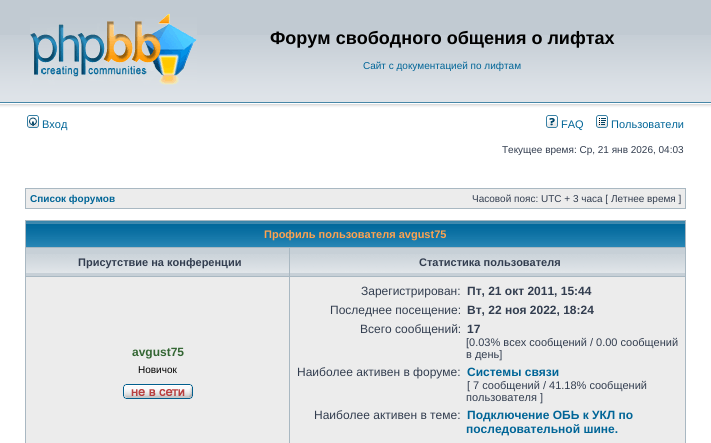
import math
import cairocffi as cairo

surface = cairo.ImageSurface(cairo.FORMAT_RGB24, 711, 443)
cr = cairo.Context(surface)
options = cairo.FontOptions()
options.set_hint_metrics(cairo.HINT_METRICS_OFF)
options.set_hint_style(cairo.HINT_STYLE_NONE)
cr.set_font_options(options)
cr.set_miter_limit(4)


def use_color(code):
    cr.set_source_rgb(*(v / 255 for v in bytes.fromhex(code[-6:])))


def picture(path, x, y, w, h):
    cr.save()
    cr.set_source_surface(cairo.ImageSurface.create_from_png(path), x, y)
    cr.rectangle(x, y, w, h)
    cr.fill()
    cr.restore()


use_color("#ffffff")
cr.paint()
use_color("#c1cad2")
cr.rectangle(0, 0, 711, 35)
cr.fill()
picture("img1.png", 0, 35, 711, 78)
picture("img2.png", 30, 14, 167, 71)
cr.select_font_face("Liberation Sans", cairo.FONT_SLANT_NORMAL, cairo.FONT_WEIGHT_BOLD)
cr.set_font_size(18)
use_color("#000000")
cr.move_to(270, 44)
cr.show_text("Форум свободного общения о лифтах")
cr.select_font_face("Liberation Sans")
cr.set_font_size(10)
use_color("#006597")
cr.move_to(363, 69)
cr.show_text("Сайт с документацией по лифтам")
picture("img3.png", 27, 115, 12, 13)
cr.set_font_size(11)
cr.move_to(42, 128)
cr.show_text("Вход")
picture("img4.png", 546, 115, 12, 13)
cr.move_to(561, 128)
cr.show_text("FAQ")
picture("img5.png", 596, 115, 12, 13)
cr.move_to(611, 128)
cr.show_text("Пользователи")
cr.set_font_size(10)
use_color("#323d4f")
cr.move_to(502, 153)
cr.show_text("Текущее время: Ср, 21 янв 2026, 04:03")
use_color("#a9b8c2")
cr.rectangle(25, 188, 661, 21)
cr.fill()
use_color("#ececec")
cr.rectangle(26, 189, 659, 19)
cr.fill()
cr.select_font_face("Liberation Sans", cairo.FONT_SLANT_NORMAL, cairo.FONT_WEIGHT_BOLD)
use_color("#006597")
cr.move_to(30, 202)
cr.show_text("Список форумов")
cr.select_font_face("Liberation Sans")
use_color("#323d4f")
cr.move_to(472, 202)
cr.show_text("Часовой пояс: UTC + 3 часа [ Летнее время ]")
use_color("#a9b8c2")
cr.rectangle(25, 220, 661, 223)
cr.fill()
picture("img6.png", 26, 221, 659, 26)
cr.select_font_face("Liberation Sans", cairo.FONT_SLANT_NORMAL, cairo.FONT_WEIGHT_BOLD)
cr.set_font_size(11)
use_color("#ffa34f")
cr.move_to(264, 238)
cr.show_text("Профиль пользователя avgust75")
use_color("#c7d0d7")
cr.rectangle(26, 248, 263, 28)
cr.fill()
picture("img7.png", 26, 254, 263, 19)
use_color("#323d4f")
cr.move_to(78, 266)
cr.show_text("Присутствие на конференции")
use_color("#c7d0d7")
cr.rectangle(290, 248, 395, 28)
cr.fill()
picture("img8.png", 290, 254, 395, 19)
use_color("#323d4f")
cr.move_to(419, 266)
cr.show_text("Статистика пользователя")
use_color("#ececec")
cr.rectangle(26, 277, 263, 166)
cr.fill()
cr.set_font_size(12)
use_color("#336633")
cr.move_to(132, 356)
cr.show_text("avgust75")
cr.select_font_face("Liberation Sans")
cr.set_font_size(10)
use_color("#000000")
cr.move_to(138, 373)
cr.show_text("Новичок")
picture("img9.png", 123, 384, 70, 15)
use_color("#ececec")
cr.rectangle(290, 277, 395, 166)
cr.fill()
cr.set_font_size(12)
use_color("#323d4f")
cr.move_to(361, 295)
cr.show_text("Зарегистрирован:")
cr.select_font_face("Liberation Sans", cairo.FONT_SLANT_NORMAL, cairo.FONT_WEIGHT_BOLD)
cr.move_to(467, 295)
cr.show_text("Пт, 21 окт 2011, 15:44")
cr.select_font_face("Liberation Sans")
cr.move_to(330, 314)
cr.show_text("Последнее посещение:")
cr.select_font_face("Liberation Sans", cairo.FONT_SLANT_NORMAL, cairo.FONT_WEIGHT_BOLD)
cr.move_to(467, 314)
cr.show_text("Вт, 22 ноя 2022, 18:24")
cr.select_font_face("Liberation Sans")
cr.move_to(360, 333)
cr.show_text("Всего сообщений:")
cr.select_font_face("Liberation Sans", cairo.FONT_SLANT_NORMAL, cairo.FONT_WEIGHT_BOLD)
cr.move_to(467, 333)
cr.show_text("17")
cr.select_font_face("Liberation Sans")
cr.set_font_size(11)
cr.move_to(466, 346)
cr.show_text("[0.03% всех сообщений / 0.00 сообщений")
cr.move_to(466, 358)
cr.show_text("в день]")
cr.set_font_size(12)
cr.move_to(297, 376)
cr.show_text("Наиболее активен в форуме:")
cr.select_font_face("Liberation Sans", cairo.FONT_SLANT_NORMAL, cairo.FONT_WEIGHT_BOLD)
use_color("#006597")
cr.move_to(467, 376)
cr.show_text("Системы связи")
cr.select_font_face("Liberation Sans")
cr.set_font_size(11)
use_color("#323d4f")
cr.move_to(467, 389)
cr.show_text("[ 7 сообщений / 41.18% сообщений")
cr.move_to(466, 401)
cr.show_text("пользователя ]")
cr.set_font_size(12)
cr.move_to(314, 419)
cr.show_text("Наиболее активен в теме:")
cr.select_font_face("Liberation Sans", cairo.FONT_SLANT_NORMAL, cairo.FONT_WEIGHT_BOLD)
use_color("#006597")
cr.move_to(467, 419)
cr.show_text("Подключение ОБЬ к УКЛ по")
cr.move_to(466, 433)
cr.show_text("последовательной шине.")
surface.write_to_png("result.png")
